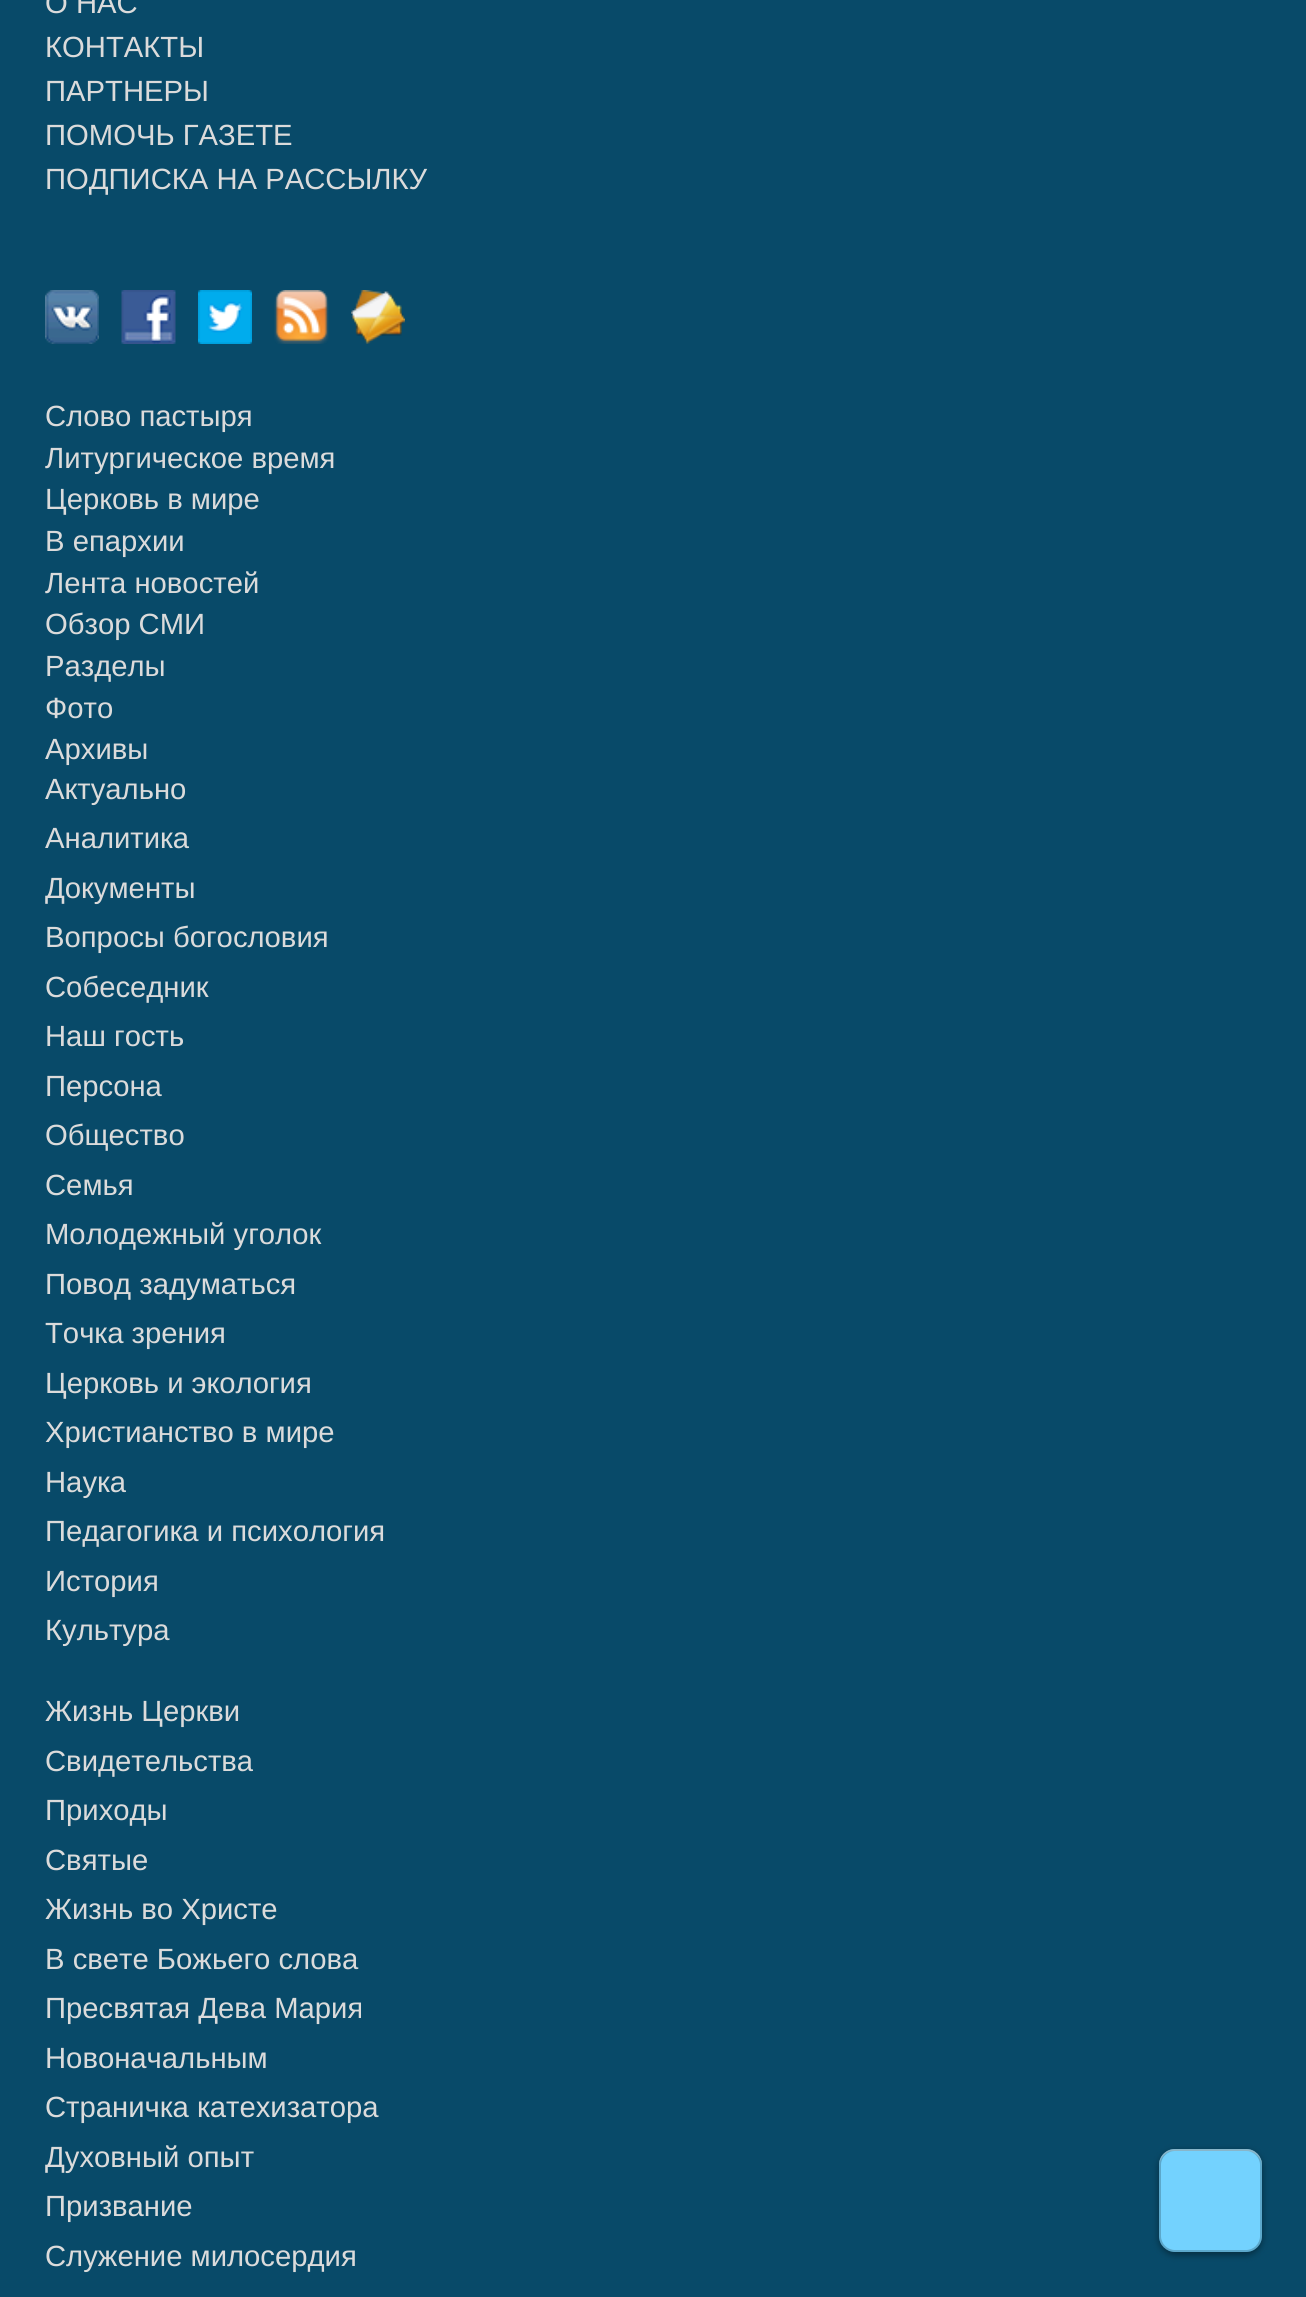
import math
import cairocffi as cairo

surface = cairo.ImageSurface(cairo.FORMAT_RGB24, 1306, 2297)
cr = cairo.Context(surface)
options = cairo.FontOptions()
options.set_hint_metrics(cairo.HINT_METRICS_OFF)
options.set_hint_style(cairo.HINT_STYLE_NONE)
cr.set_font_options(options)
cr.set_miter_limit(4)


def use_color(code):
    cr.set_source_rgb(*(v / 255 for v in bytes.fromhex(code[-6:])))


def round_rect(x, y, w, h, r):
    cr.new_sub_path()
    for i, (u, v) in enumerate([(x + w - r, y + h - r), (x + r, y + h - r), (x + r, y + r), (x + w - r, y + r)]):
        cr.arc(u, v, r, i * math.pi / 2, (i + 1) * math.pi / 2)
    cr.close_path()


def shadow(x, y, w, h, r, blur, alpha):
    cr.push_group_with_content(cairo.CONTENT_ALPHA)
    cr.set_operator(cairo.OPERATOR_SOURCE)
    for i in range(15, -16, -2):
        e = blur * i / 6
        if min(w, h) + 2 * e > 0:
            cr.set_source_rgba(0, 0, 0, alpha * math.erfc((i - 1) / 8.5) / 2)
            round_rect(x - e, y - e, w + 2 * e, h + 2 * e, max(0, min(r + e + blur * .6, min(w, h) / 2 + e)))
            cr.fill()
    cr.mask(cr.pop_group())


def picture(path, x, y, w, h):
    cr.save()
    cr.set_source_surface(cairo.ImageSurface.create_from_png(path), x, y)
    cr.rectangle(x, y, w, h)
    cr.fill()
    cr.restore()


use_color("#084a69")
cr.paint()
cr.select_font_face("Liberation Sans")
cr.set_font_size(29.25)
use_color("#dbdbdb")
cr.move_to(45, 13)
cr.show_text("О НАС")
cr.move_to(45, 57)
cr.show_text("КОНТАКТЫ")
cr.move_to(45, 101)
cr.show_text("ПАРТНЕРЫ")
cr.move_to(45, 145)
cr.show_text("ПОМОЧЬ ГАЗЕТЕ")
cr.move_to(45, 189)
cr.show_text("ПОДПИСКА НА РАССЫЛКУ")
picture("img1.png", 45, 290, 54, 54)
picture("img2.png", 121, 290, 55, 54)
picture("img3.png", 198, 290, 54, 54)
picture("img4.png", 274, 290, 55, 54)
picture("img5.png", 351, 290, 54, 54)
cr.move_to(45, 426)
cr.show_text("Слово пастыря")
cr.move_to(45, 468)
cr.show_text("Литургическое время")
cr.move_to(45, 509)
cr.show_text("Церковь в мире")
cr.move_to(45, 551)
cr.show_text("В епархии")
cr.move_to(45, 593)
cr.show_text("Лента новостей")
cr.move_to(45, 634)
cr.show_text("Обзор СМИ")
cr.move_to(45, 676)
cr.show_text("Разделы")
cr.move_to(45, 718)
cr.show_text("Фото")
cr.move_to(45, 759)
cr.show_text("Архивы")
cr.move_to(45, 799)
cr.show_text("Актуально")
cr.move_to(45, 848)
cr.show_text("Аналитика")
cr.move_to(45, 898)
cr.show_text("Документы")
cr.move_to(45, 947)
cr.show_text("Вопросы богословия")
cr.move_to(45, 997)
cr.show_text("Собеседник")
cr.move_to(45, 1046)
cr.show_text("Наш гость")
cr.move_to(45, 1096)
cr.show_text("Персона")
cr.move_to(45, 1145)
cr.show_text("Общество")
cr.move_to(45, 1195)
cr.show_text("Семья")
cr.move_to(45, 1244)
cr.show_text("Молодежный уголок")
cr.move_to(45, 1294)
cr.show_text("Повод задуматься")
cr.move_to(45, 1343)
cr.show_text("Точка зрения")
cr.move_to(45, 1393)
cr.show_text("Церковь и экология")
cr.move_to(45, 1442)
cr.show_text("Христианство в мире")
cr.move_to(45, 1492)
cr.show_text("Наука")
cr.move_to(45, 1541)
cr.show_text("Педагогика и психология")
cr.move_to(45, 1591)
cr.show_text("История")
cr.move_to(45, 1640)
cr.show_text("Культура")
cr.move_to(45, 1721)
cr.show_text("Жизнь Церкви")
cr.move_to(45, 1771)
cr.show_text("Свидетельства")
cr.move_to(45, 1820)
cr.show_text("Приходы")
cr.move_to(45, 1870)
cr.show_text("Святые")
cr.move_to(45, 1919)
cr.show_text("Жизнь во Христе")
cr.move_to(45, 1969)
cr.show_text("В свете Божьего слова")
cr.move_to(45, 2018)
cr.show_text("Пресвятая Дева Мария")
cr.move_to(45, 2068)
cr.show_text("Новоначальным")
cr.move_to(45, 2117)
cr.show_text("Страничка катехизатора")
cr.move_to(45, 2167)
cr.show_text("Духовный опыт")
cr.move_to(45, 2216)
cr.show_text("Призвание")
cr.move_to(45, 2266)
cr.show_text("Служение милосердия")
use_color("#000001")
shadow(1159, 2151, 103, 104, 16, 3.5, 0.4)
use_color("#73d2fe")
round_rect(1159, 2149, 103, 103, 16)
cr.fill()
cr.set_source_rgba(0.992, 0.996, 0.996, 0.4)
cr.new_path()
cr.move_to(1174, 2151)
cr.line_to(1246, 2151)
cr.curve_to(1255, 2151, 1262, 2158, 1262, 2167)
cr.line_to(1262, 2165)
cr.curve_to(1262, 2156, 1255, 2149, 1246, 2149)
cr.line_to(1175, 2149)
cr.curve_to(1166, 2149, 1159, 2156, 1159, 2165)
cr.line_to(1159, 2167)
cr.curve_to(1159, 2158, 1166, 2151, 1174, 2151)
cr.close_path()
cr.fill()
round_rect(1160, 2150, 101, 101, 15)
cr.set_source_rgba(0, 0, 0.004, 0.2)
cr.stroke()
surface.write_to_png("result.png")
